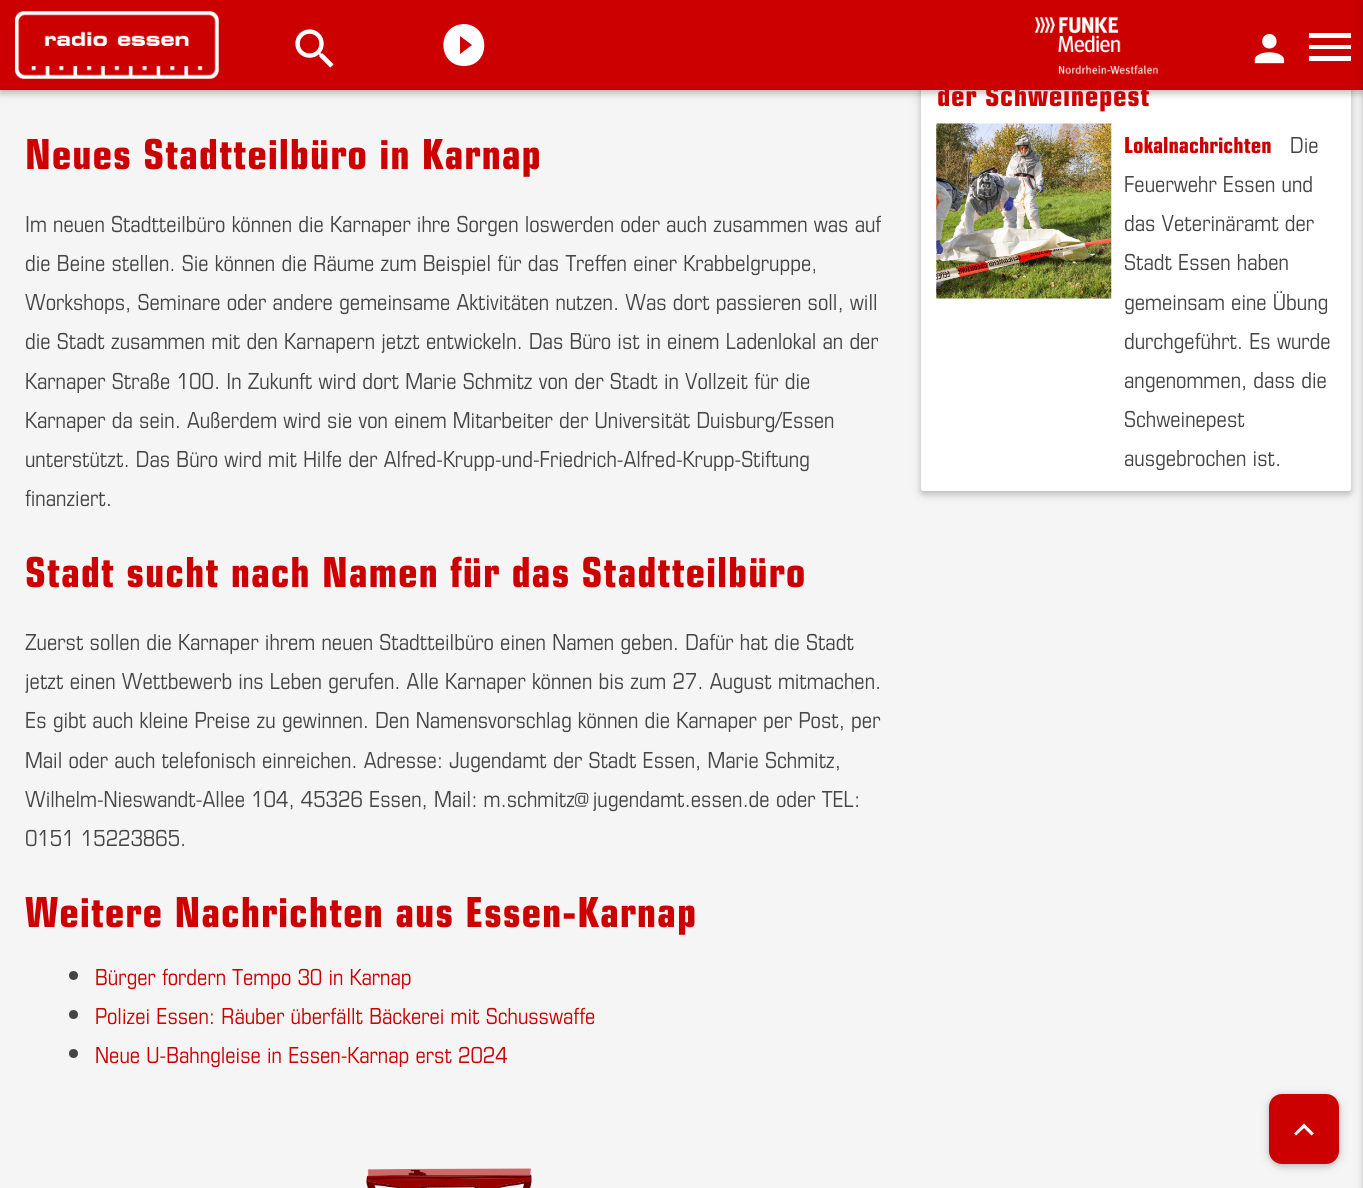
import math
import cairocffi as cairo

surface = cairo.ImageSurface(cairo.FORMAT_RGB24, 1363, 1188)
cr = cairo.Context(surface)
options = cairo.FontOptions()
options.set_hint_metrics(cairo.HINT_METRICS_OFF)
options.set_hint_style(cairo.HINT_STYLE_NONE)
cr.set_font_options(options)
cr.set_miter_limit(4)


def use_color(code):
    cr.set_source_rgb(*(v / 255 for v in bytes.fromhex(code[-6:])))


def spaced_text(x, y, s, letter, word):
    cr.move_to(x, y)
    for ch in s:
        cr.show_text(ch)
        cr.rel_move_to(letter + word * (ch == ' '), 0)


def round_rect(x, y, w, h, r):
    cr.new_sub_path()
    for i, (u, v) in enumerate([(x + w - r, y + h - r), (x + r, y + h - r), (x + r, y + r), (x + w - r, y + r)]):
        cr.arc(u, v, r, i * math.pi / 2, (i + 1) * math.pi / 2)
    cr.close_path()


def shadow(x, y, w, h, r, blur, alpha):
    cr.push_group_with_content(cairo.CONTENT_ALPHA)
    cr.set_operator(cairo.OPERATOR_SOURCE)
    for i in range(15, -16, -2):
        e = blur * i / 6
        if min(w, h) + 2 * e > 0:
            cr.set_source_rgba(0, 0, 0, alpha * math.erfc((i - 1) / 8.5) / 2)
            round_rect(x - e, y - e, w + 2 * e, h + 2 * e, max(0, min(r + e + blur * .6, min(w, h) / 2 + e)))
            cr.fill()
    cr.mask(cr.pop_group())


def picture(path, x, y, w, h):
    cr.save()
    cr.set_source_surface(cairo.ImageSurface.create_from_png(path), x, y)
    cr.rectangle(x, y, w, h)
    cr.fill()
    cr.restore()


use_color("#f5f5f5")
cr.paint()
use_color("#000000")
shadow(921, 30, 430, 464, 2.5, 6, 0.12)
shadow(921, 30, 430, 464, 2.5, 3, 0.16)
use_color("#ffffff")
round_rect(921, 28, 430, 463, 2.5)
cr.fill()
use_color("#000000")
shadow(0, 3, 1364, 90, 0, 6, 0.12)
shadow(0, 3, 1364, 90, 0, 3, 0.16)
use_color("#cc0000")
cr.rectangle(0, 0, 1363, 90)
cr.fill()
picture("img1.png", 15, 11, 204, 68)
picture("img2.png", 295, 29, 39, 39)
use_color("#ffffff")
cr.new_path()
cr.move_to(460, 54)
cr.line_to(460, 36)
cr.line_to(472, 45)
cr.close_path()
cr.move_to(464, 24)
cr.curve_to(436, 25, 437, 66, 464, 66)
cr.curve_to(491, 66, 491, 25, 464, 24)
cr.close_path()
cr.fill()
picture("img3.png", 1035, 17, 123, 58)
picture("img4.png", 1254, 34, 30, 30)
cr.new_path()
cr.move_to(1309, 33)
cr.line_to(1351, 33)
cr.line_to(1351, 38)
cr.line_to(1309, 38)
cr.close_path()
cr.move_to(1309, 45)
cr.line_to(1351, 45)
cr.line_to(1351, 49)
cr.line_to(1309, 49)
cr.close_path()
cr.move_to(1309, 56)
cr.line_to(1351, 56)
cr.line_to(1351, 61)
cr.line_to(1309, 61)
cr.close_path()
cr.fill()
cr.select_font_face("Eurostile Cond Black")
cr.set_font_size(45)
use_color("#cc0000")
spaced_text(25, 169, "Neues Stadtteilbüro in Karnap", 0.9, 0)
cr.select_font_face("Eurostile Cond")
cr.set_font_size(24)
use_color("#454545")
cr.move_to(25, 232)
cr.show_text("Im neuen Stadtteilbüro können die Karnaper ihre Sorgen loswerden oder auch zusammen was auf")
cr.move_to(25, 271)
cr.show_text("die Beine stellen. Sie können die Räume zum Beispiel für das Treffen einer Krabbelgruppe,")
cr.move_to(25, 310)
cr.show_text("Workshops, Seminare oder andere gemeinsame Aktivitäten nutzen. Was dort passieren soll, will")
cr.move_to(25, 349)
cr.show_text("die Stadt zusammen mit den Karnapern jetzt entwickeln. Das Büro ist in einem Ladenlokal an der")
cr.move_to(25, 389)
cr.show_text("Karnaper Straße 100. In Zukunft wird dort Marie Schmitz von der Stadt in Vollzeit für die")
cr.move_to(25, 428)
cr.show_text("Karnaper da sein. Außerdem wird sie von einem Mitarbeiter der Universität Duisburg/Essen")
cr.move_to(25, 467)
cr.show_text("unterstützt. Das Büro wird mit Hilfe der Alfred-Krupp-und-Friedrich-Alfred-Krupp-Stiftung")
cr.move_to(25, 506)
cr.show_text("finanziert.")
cr.select_font_face("Eurostile Cond Black")
cr.set_font_size(45)
use_color("#cc0000")
spaced_text(25, 587, "Stadt sucht nach Namen für das Stadtteilbüro", 0.9, 0)
cr.select_font_face("Eurostile Cond")
cr.set_font_size(24)
use_color("#454545")
cr.move_to(25, 650)
cr.show_text("Zuerst sollen die Karnaper ihrem neuen Stadtteilbüro einen Namen geben. Dafür hat die Stadt")
cr.move_to(25, 689)
cr.show_text("jetzt einen Wettbewerb ins Leben gerufen. Alle Karnaper können bis zum 27. August mitmachen.")
cr.move_to(25, 728)
cr.show_text("Es gibt auch kleine Preise zu gewinnen. Den Namensvorschlag können die Karnaper per Post, per")
cr.move_to(25, 768)
cr.show_text("Mail oder auch telefonisch einreichen. Adresse: Jugendamt der Stadt Essen, Marie Schmitz,")
cr.move_to(25, 807)
cr.show_text("Wilhelm-Nieswandt-Allee 104, 45326 Essen, Mail: m.schmitz@jugendamt.essen.de oder TEL:")
cr.move_to(25, 846)
cr.show_text("0151 15223865.")
cr.select_font_face("Eurostile Cond Black")
cr.set_font_size(45)
use_color("#cc0000")
spaced_text(25, 927, "Weitere Nachrichten aus Essen-Karnap", 0.9, 0)
use_color("#454545")
cr.new_path()
cr.arc(73.5, 975.5, 4.5, 0, 2 * math.pi)
cr.fill()
cr.select_font_face("Eurostile Cond")
cr.set_font_size(24)
use_color("#cc0000")
cr.move_to(95, 985)
cr.show_text("Bürger fordern Tempo 30 in Karnap")
use_color("#454545")
cr.new_path()
cr.arc(73.5, 1014.5, 4.5, 0, 2 * math.pi)
cr.fill()
use_color("#cc0000")
cr.move_to(95, 1024)
cr.show_text("Polizei Essen: Räuber überfällt Bäckerei mit Schusswaffe")
use_color("#454545")
cr.new_path()
cr.arc(73.5, 1053.5, 4.5, 0, 2 * math.pi)
cr.fill()
use_color("#cc0000")
cr.move_to(95, 1063)
cr.show_text("Neue U-Bahngleise in Essen-Karnap erst 2024")
cr.select_font_face("Eurostile Cond Black")
cr.set_font_size(31.25)
spaced_text(937, 106, "der Schweinepest", 0.6, 0)
picture("img5.png", 936, 123, 176, 176)
cr.set_font_size(24)
cr.move_to(1124, 153)
cr.show_text("Lokalnachrichten")
cr.select_font_face("Eurostile Cond")
use_color("#454545")
cr.move_to(1290, 153)
cr.show_text("Die")
cr.move_to(1124, 192)
cr.show_text("Feuerwehr Essen und")
cr.move_to(1124, 231)
cr.show_text("das Veterinäramt der")
cr.move_to(1124, 270)
cr.show_text("Stadt Essen haben")
cr.move_to(1124, 310)
cr.show_text("gemeinsam eine Übung")
cr.move_to(1124, 349)
cr.show_text("durchgeführt. Es wurde")
cr.move_to(1124, 388)
cr.show_text("angenommen, dass die")
cr.move_to(1124, 427)
cr.show_text("Schweinepest")
cr.move_to(1124, 466)
cr.show_text("ausgebrochen ist.")
picture("img6.png", 366, 1168, 166, 20)
use_color("#000000")
shadow(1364, 3, 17, 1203, 0, 6, 0.12)
shadow(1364, 3, 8, 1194, 0, 3, 0.16)
shadow(1269, 1096, 70, 70, 13, 6, 0.12)
shadow(1269, 1096, 70, 70, 13, 3, 0.16)
use_color("#cc0000")
round_rect(1269, 1094, 70, 70, 13)
cr.fill()
use_color("#ffffff")
cr.new_path()
cr.move_to(1296, 1135.5)
cr.line_to(1304, 1128)
cr.line_to(1311.5, 1135.5)
cr.line_to(1314, 1133.5)
cr.line_to(1304, 1123.5)
cr.line_to(1294, 1133.5)
cr.close_path()
cr.fill()
surface.write_to_png("result.png")
